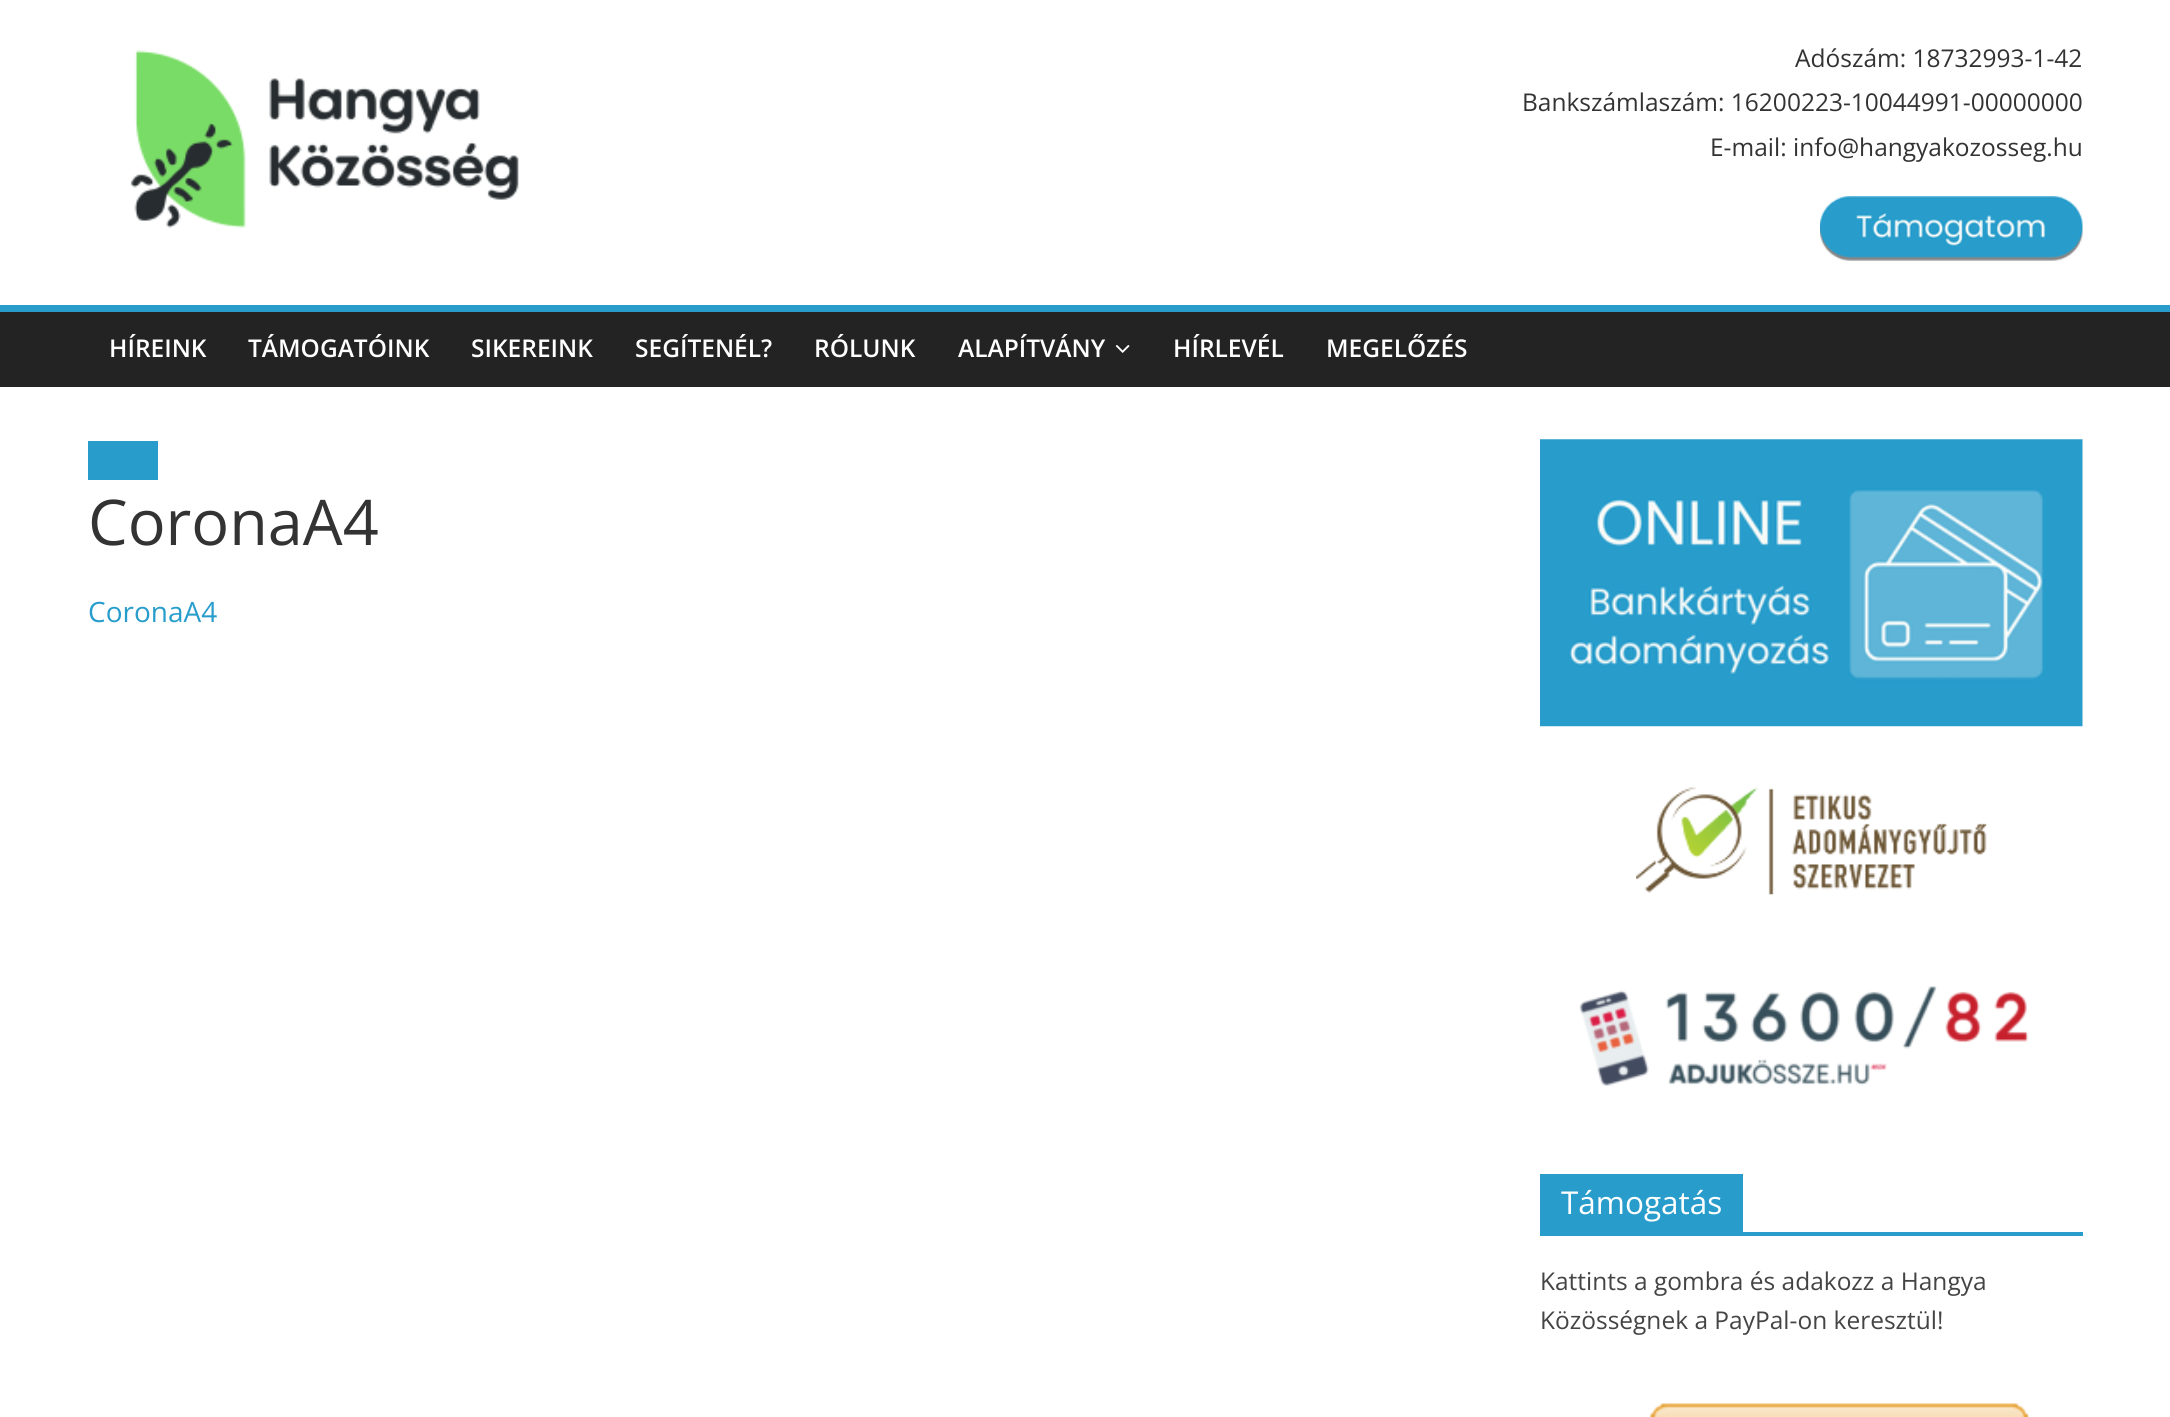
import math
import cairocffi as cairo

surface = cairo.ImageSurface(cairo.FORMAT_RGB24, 2170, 1417)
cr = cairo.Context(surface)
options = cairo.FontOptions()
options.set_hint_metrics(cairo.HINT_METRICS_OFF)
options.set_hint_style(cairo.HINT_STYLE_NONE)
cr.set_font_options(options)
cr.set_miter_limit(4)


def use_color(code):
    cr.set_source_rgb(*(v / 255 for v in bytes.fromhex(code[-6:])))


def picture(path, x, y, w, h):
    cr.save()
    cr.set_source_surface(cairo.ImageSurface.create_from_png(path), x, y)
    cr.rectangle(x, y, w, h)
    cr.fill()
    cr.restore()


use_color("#ffffff")
cr.paint()
picture("img1.png", 130, 50, 389, 178)
cr.select_font_face("Open Sans")
cr.set_font_size(24.5)
use_color("#333333")
cr.move_to(1795, 67)
cr.show_text("Adószám: 18732993-1-42")
cr.move_to(1522, 111)
cr.show_text("Bankszámlaszám: 16200223-10044991-00000000")
cr.move_to(1710, 156)
cr.show_text("E-mail: info@hangyakozosseg.hu")
picture("img2.png", 1820, 196, 263, 65)
use_color("#232323")
cr.rectangle(0, 312, 2170, 75)
cr.fill()
use_color("#289dcc")
cr.rectangle(0, 305, 2170, 7)
cr.fill()
cr.select_font_face("Open Sans SemiBold")
use_color("#ffffff")
cr.move_to(109, 357)
cr.show_text("HÍREINK")
cr.move_to(248, 357)
cr.show_text("TÁMOGATÓINK")
cr.move_to(471, 357)
cr.show_text("SIKEREINK")
cr.move_to(635, 357)
cr.show_text("SEGÍTENÉL?")
cr.move_to(814, 357)
cr.show_text("RÓLUNK")
cr.move_to(958, 357)
cr.show_text("ALAPÍTVÁNY")
picture("img3.png", 1115, 345, 15, 8)
cr.move_to(1173, 357)
cr.show_text("HÍRLEVÉL")
cr.move_to(1326, 357)
cr.show_text("MEGELŐZÉS")
use_color("#289dcc")
cr.rectangle(88, 441, 70, 39)
cr.fill()
cr.select_font_face("Open Sans")
cr.set_font_size(63)
use_color("#333333")
cr.move_to(88, 545)
cr.show_text("CoronaA4")
cr.set_font_size(28)
use_color("#289dcc")
cr.move_to(88, 622)
cr.show_text("CoronaA4")
picture("img4.png", 1540, 439, 543, 288)
picture("img5.png", 1636, 787, 351, 108)
picture("img6.png", 1579, 985, 450, 101)
cr.rectangle(1540, 1232, 543, 4)
cr.fill()
cr.rectangle(1540, 1174, 203, 58)
cr.fill()
cr.set_font_size(31.5)
use_color("#ffffff")
cr.move_to(1561, 1214)
cr.show_text("Támogatás")
cr.set_font_size(24.5)
use_color("#444444")
cr.move_to(1540, 1290)
cr.show_text("Kattints a gombra és adakozz a Hangya")
cr.move_to(1540, 1329)
cr.show_text("Közösségnek a PayPal-on keresztül!")
picture("img7.png", 1649, 1403, 380, 14)
surface.write_to_png("result.png")
